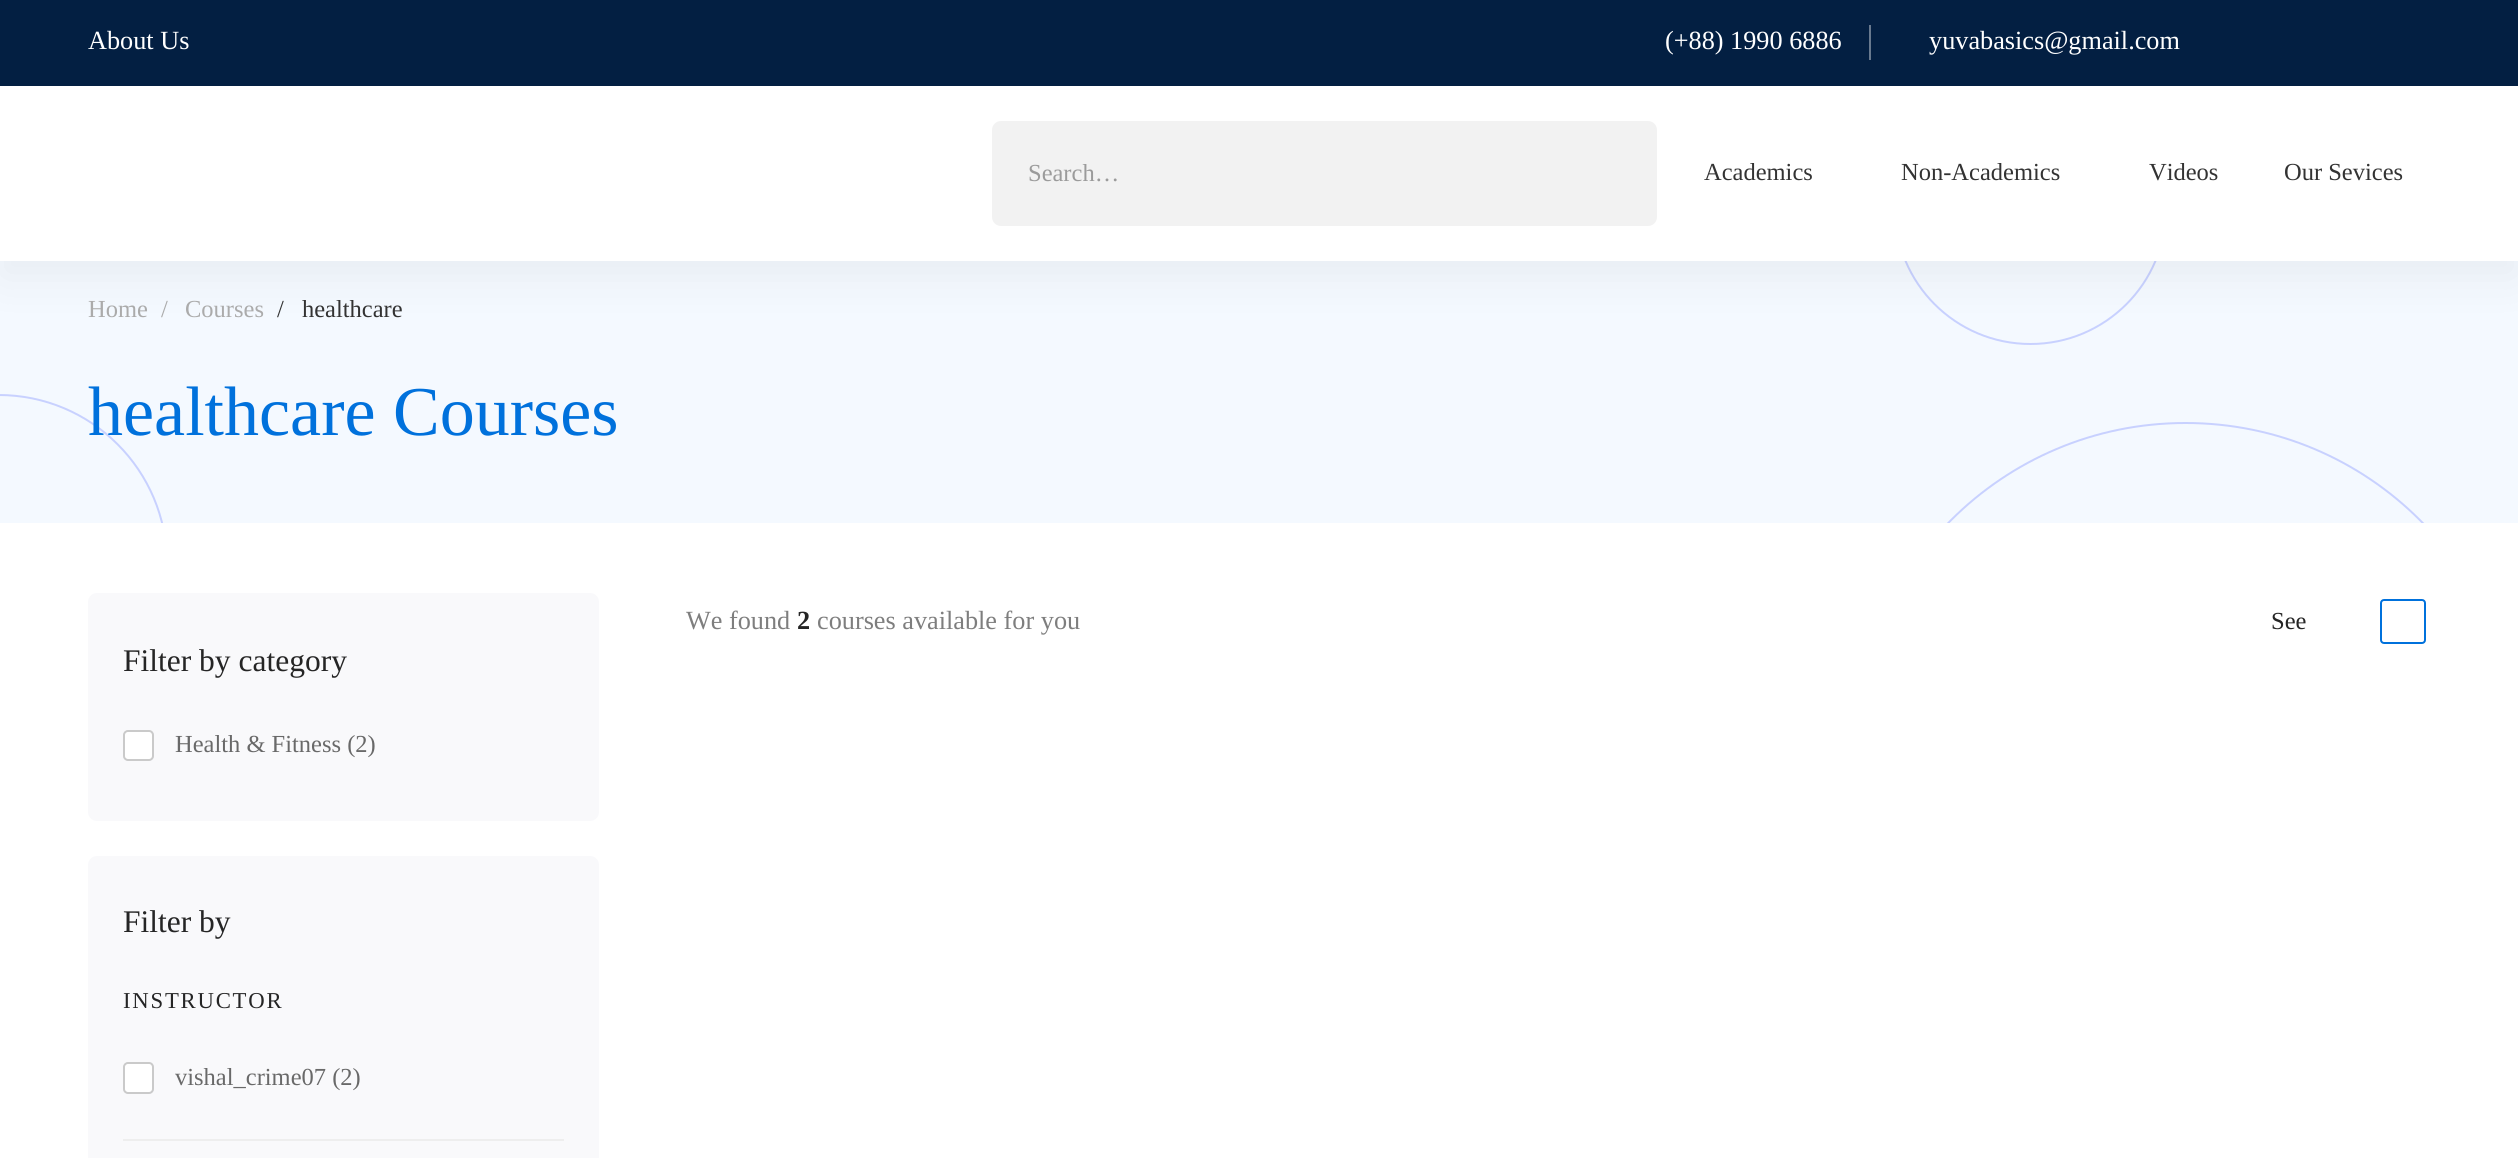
import math
import cairocffi as cairo

surface = cairo.ImageSurface(cairo.FORMAT_RGB24, 2518, 1158)
cr = cairo.Context(surface)
options = cairo.FontOptions()
options.set_hint_metrics(cairo.HINT_METRICS_OFF)
options.set_hint_style(cairo.HINT_STYLE_NONE)
cr.set_font_options(options)
cr.set_miter_limit(4)


def use_color(code):
    cr.set_source_rgb(*(v / 255 for v in bytes.fromhex(code[-6:])))


def spaced_text(x, y, s, letter, word):
    cr.move_to(x, y)
    for ch in s:
        cr.show_text(ch)
        cr.rel_move_to(letter + word * (ch == ' '), 0)


def round_rect(x, y, w, h, r):
    cr.new_sub_path()
    for i, (u, v) in enumerate([(x + w - r, y + h - r), (x + r, y + h - r), (x + r, y + r), (x + w - r, y + r)]):
        cr.arc(u, v, r, i * math.pi / 2, (i + 1) * math.pi / 2)
    cr.close_path()


def shadow(x, y, w, h, r, blur, alpha):
    cr.push_group_with_content(cairo.CONTENT_ALPHA)
    cr.set_operator(cairo.OPERATOR_SOURCE)
    for i in range(15, -16, -2):
        e = blur * i / 6
        if min(w, h) + 2 * e > 0:
            cr.set_source_rgba(0, 0, 0, alpha * math.erfc((i - 1) / 8.5) / 2)
            round_rect(x - e, y - e, w + 2 * e, h + 2 * e, max(0, min(r + e + blur * .6, min(w, h) / 2 + e)))
            cr.fill()
    cr.mask(cr.pop_group())


use_color("#ffffff")
cr.paint()
use_color("#f4f9ff")
cr.rectangle(0, 261, 2518, 262)
cr.fill()
cr.arc(2030.5, 208.5, 135.5, 0, 2 * math.pi)
use_color("#c8d1ff")
cr.stroke()
use_color("#000000")
shadow(0, 18, 2518, 260, 0, 23, 0.05)
use_color("#ffffff")
cr.rectangle(0, 86, 2518, 175)
cr.fill()
use_color("#031f42")
cr.rectangle(0, 0, 2518, 86)
cr.fill()
cr.select_font_face("Liberation Serif")
cr.set_font_size(26.25)
use_color("#ffffff")
cr.move_to(88, 49)
cr.show_text("About Us")
cr.move_to(1665, 49)
cr.show_text("(+88) 1990 6886")
use_color("#68798e")
cr.rectangle(1869, 25, 2, 35)
cr.fill()
use_color("#ffffff")
cr.move_to(1929, 49)
cr.show_text("yuvabasics@gmail.com")
use_color("#f2f2f2")
round_rect(993, 122, 663, 103, 8)
cr.fill_preserve()
cr.stroke()
cr.set_font_size(24.5)
use_color("#9b9b9b")
cr.move_to(1028, 181)
cr.show_text("Search…")
use_color("#333333")
cr.move_to(1704, 180)
cr.show_text("Academics")
cr.move_to(1901, 180)
cr.show_text("Non-Academics")
cr.move_to(2149, 180)
cr.show_text("Videos")
cr.move_to(2284, 180)
cr.show_text("Our Sevices")
use_color("#f9f9fb")
round_rect(88, 593, 511, 228, 9)
cr.fill()
cr.set_font_size(31.5)
use_color("#252525")
cr.move_to(123, 671)
cr.show_text("Filter by category")
use_color("#ffffff")
round_rect(124, 731, 29, 29, 4)
cr.fill_preserve()
use_color("#cacaca")
cr.stroke()
cr.save()
cr.rectangle(0, 261, 2518, 262)
cr.clip()
cr.arc(-1.5, 563.5, 168.5, 0, 2 * math.pi)
use_color("#c8d1ff")
cr.stroke()
cr.restore()
cr.set_font_size(24.5)
use_color("#252525")
cr.move_to(2271, 629)
cr.show_text("See")
round_rect(2381, 600, 44, 43, 3)
use_color("#0071dc")
cr.stroke()
cr.save()
cr.rectangle(0, 261, 2518, 262)
cr.clip()
cr.arc(2185.5, 754.5, 331.5, 0, 2 * math.pi)
use_color("#c8d1ff")
cr.stroke()
cr.restore()
use_color("#ababab")
cr.move_to(88, 317)
cr.show_text("Home")
cr.move_to(161, 317)
cr.show_text("/")
cr.move_to(185, 317)
cr.show_text("Courses")
use_color("#333333")
cr.move_to(277, 317)
cr.show_text("/")
cr.move_to(302, 317)
cr.show_text("healthcare")
cr.set_font_size(70)
use_color("#0071dc")
cr.move_to(88, 435)
cr.show_text("healthcare Courses")
cr.set_font_size(26.25)
use_color("#7e7e7e")
cr.move_to(686, 629)
cr.show_text("We found")
cr.select_font_face("Liberation Serif", cairo.FONT_SLANT_NORMAL, cairo.FONT_WEIGHT_BOLD)
use_color("#252525")
cr.move_to(797, 629)
cr.show_text("2")
cr.select_font_face("Liberation Serif")
use_color("#7e7e7e")
cr.move_to(817, 629)
cr.show_text("courses available for you")
cr.set_font_size(24.5)
use_color("#696969")
cr.move_to(175, 752)
cr.show_text("Health & Fitness (2)")
use_color("#f9f9fb")
round_rect(88, 856, 511, 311, 9)
cr.fill()
cr.set_font_size(31.5)
use_color("#252525")
cr.move_to(123, 932)
cr.show_text("Filter by")
cr.set_font_size(22.75)
spaced_text(123, 1008, "INSTRUCTOR", 1.75, 0)
use_color("#ffffff")
round_rect(124, 1063, 29, 30, 4)
cr.fill_preserve()
use_color("#cacaca")
cr.stroke()
cr.set_font_size(24.5)
use_color("#696969")
cr.move_to(175, 1085)
cr.show_text("vishal_crime07 (2)")
use_color("#eeeeee")
cr.rectangle(123, 1139, 441, 2)
cr.fill()
surface.write_to_png("result.png")
